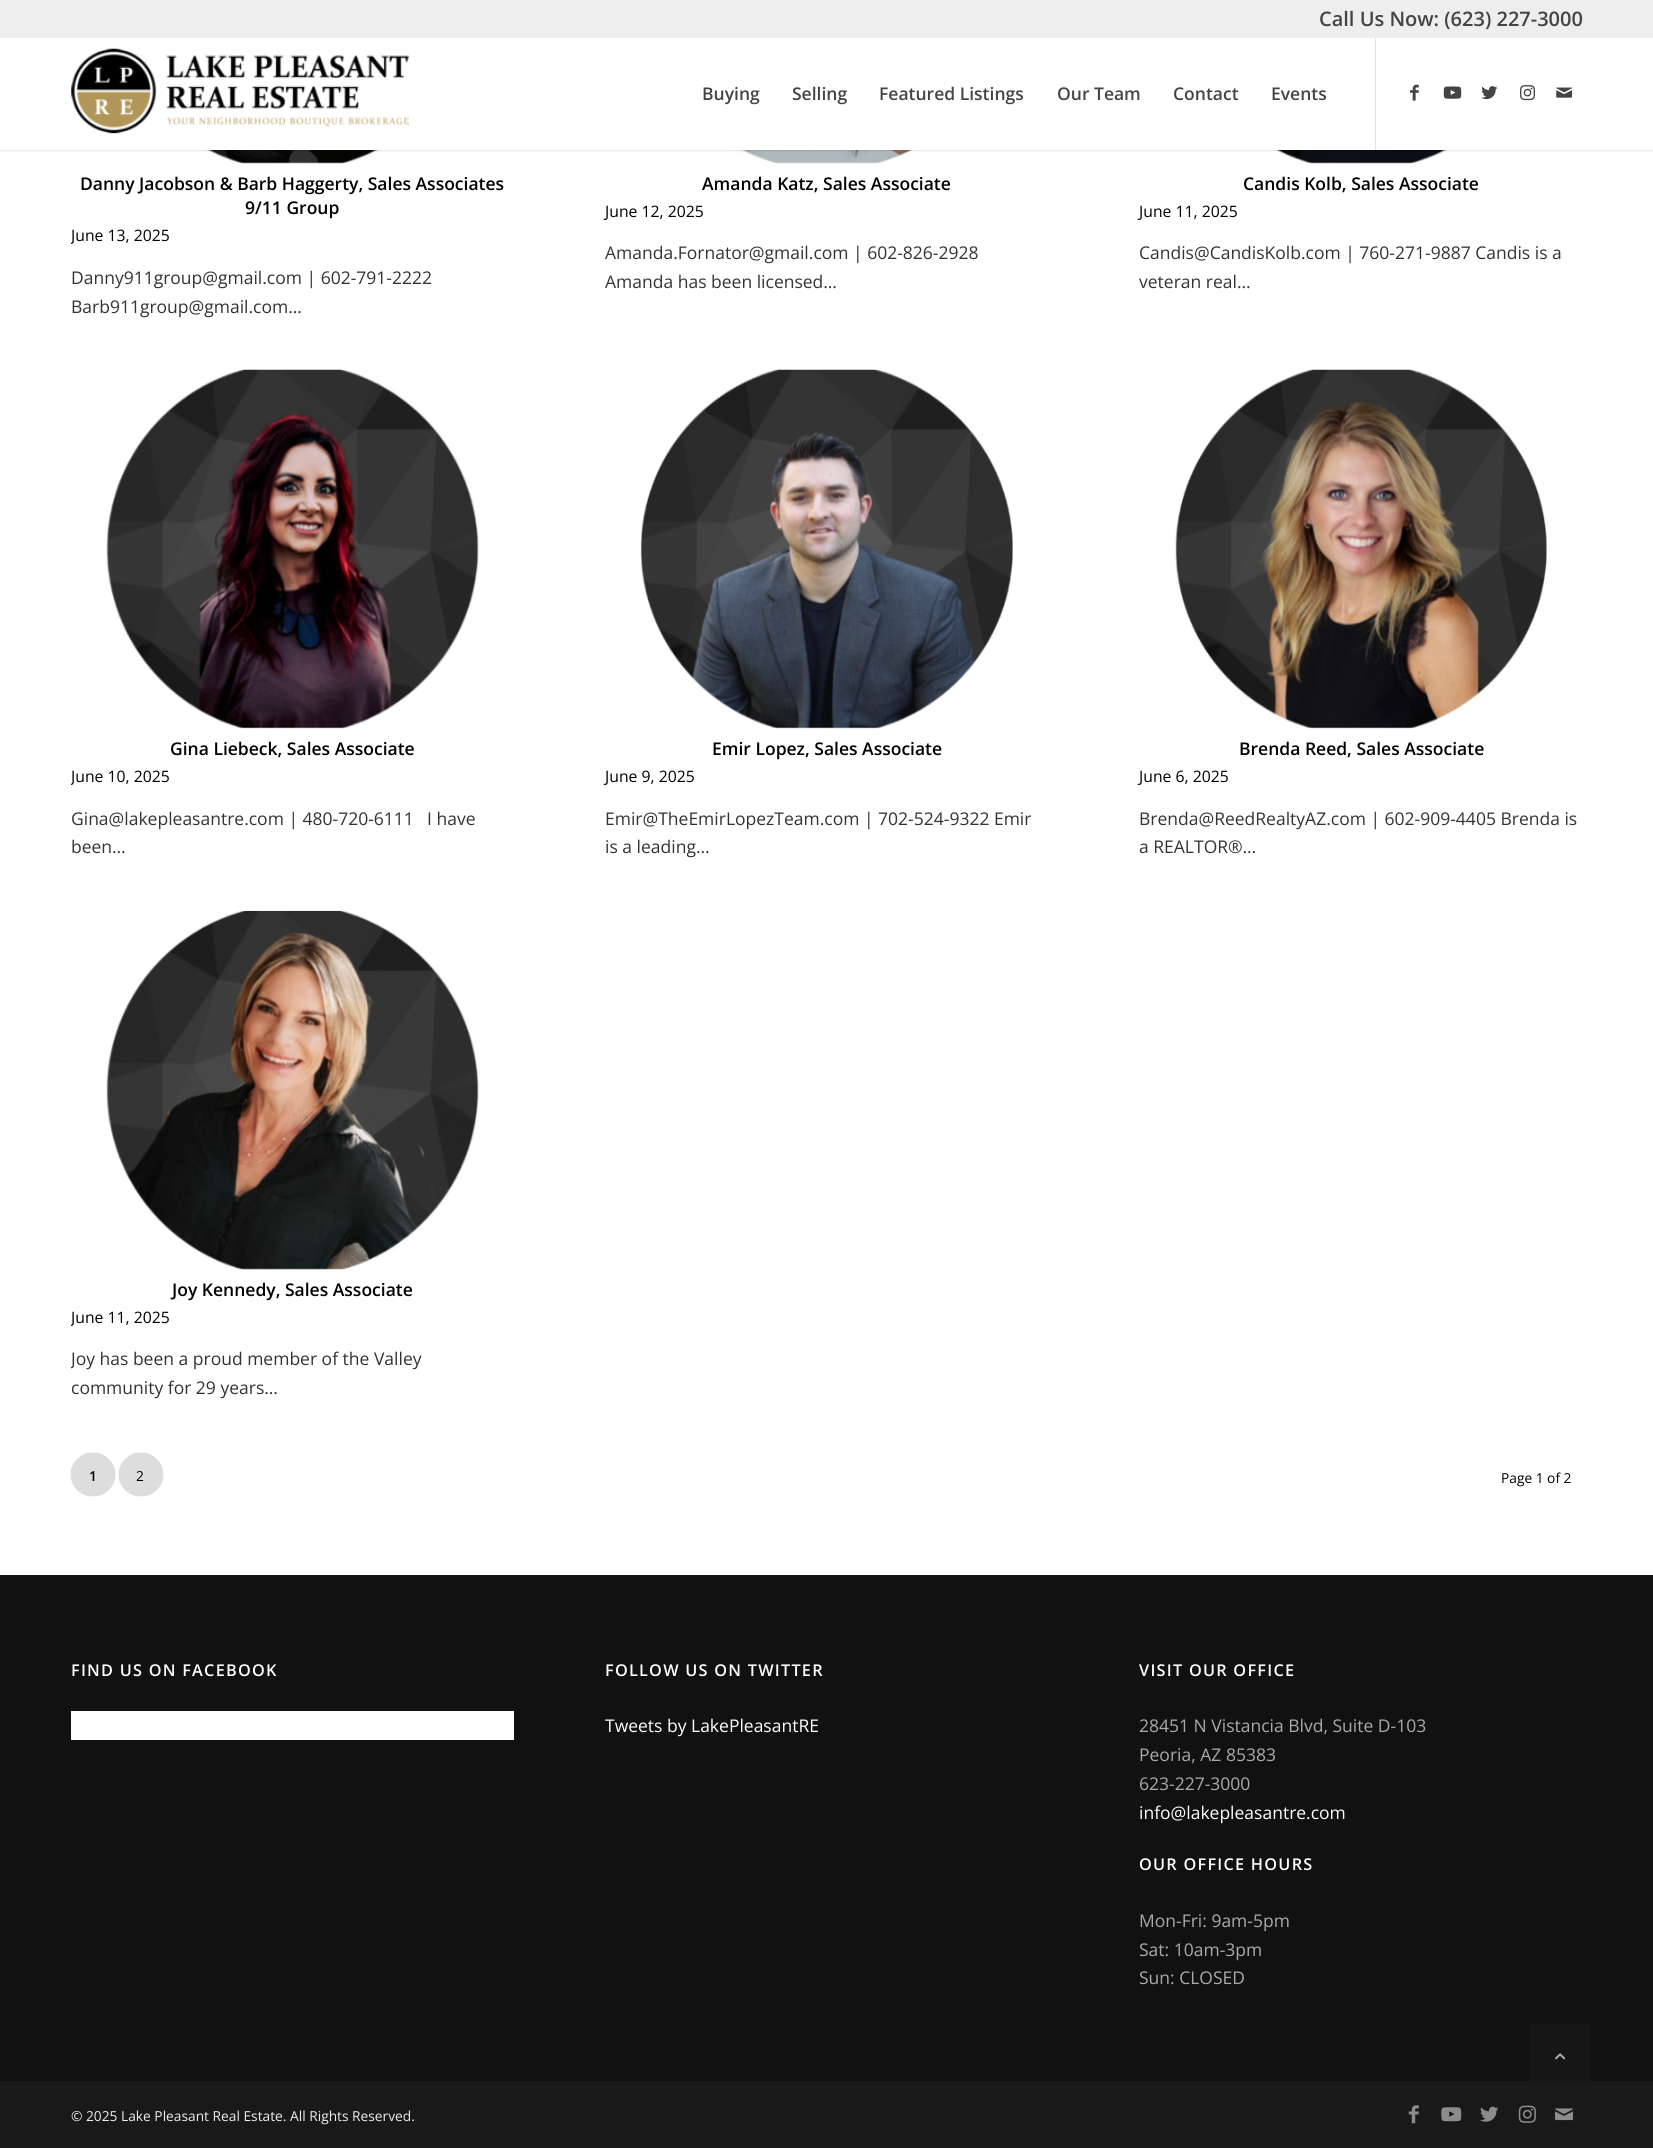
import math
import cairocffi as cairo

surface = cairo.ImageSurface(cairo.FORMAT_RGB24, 1653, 2148)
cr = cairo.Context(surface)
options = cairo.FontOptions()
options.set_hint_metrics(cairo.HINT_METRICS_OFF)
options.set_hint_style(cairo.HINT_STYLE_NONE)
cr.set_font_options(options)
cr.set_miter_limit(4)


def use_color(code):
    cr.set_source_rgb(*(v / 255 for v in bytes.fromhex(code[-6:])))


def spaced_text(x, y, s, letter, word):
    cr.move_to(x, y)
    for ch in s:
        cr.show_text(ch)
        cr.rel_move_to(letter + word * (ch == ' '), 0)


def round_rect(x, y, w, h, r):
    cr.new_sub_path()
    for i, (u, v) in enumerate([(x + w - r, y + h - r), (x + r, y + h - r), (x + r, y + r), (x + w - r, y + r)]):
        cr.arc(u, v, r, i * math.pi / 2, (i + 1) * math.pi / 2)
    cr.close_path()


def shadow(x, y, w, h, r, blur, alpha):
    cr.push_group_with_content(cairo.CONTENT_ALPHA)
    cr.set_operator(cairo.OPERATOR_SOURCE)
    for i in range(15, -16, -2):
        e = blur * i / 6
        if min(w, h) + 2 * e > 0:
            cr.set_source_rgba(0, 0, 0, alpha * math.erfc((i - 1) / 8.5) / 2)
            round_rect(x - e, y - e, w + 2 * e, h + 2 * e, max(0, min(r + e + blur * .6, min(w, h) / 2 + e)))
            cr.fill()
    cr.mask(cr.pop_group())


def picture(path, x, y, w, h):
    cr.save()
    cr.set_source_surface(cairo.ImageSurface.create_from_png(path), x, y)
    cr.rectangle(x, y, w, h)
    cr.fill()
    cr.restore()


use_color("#ffffff")
cr.paint()
picture("img7.png", 107, 150, 372, 14)
picture("img8.png", 641, 150, 372, 14)
picture("img9.png", 1175, 150, 372, 14)
use_color("#000000")
shadow(-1, -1, 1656, 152, 0, 1, 0.1)
use_color("#eeeeee")
cr.rectangle(0, 0, 1653, 38)
cr.fill()
cr.select_font_face("Open Sans SemiBold")
cr.set_font_size(20)
use_color("#444444")
cr.move_to(1319, 26)
cr.show_text("Call Us Now: (623) 227-3000")
use_color("#ffffff")
cr.rectangle(0, 38, 1653, 112)
cr.fill()
picture("img1.png", 71, 48, 338, 86)
use_color("#e1e1e1")
cr.rectangle(1375, 38, 1, 112)
cr.fill()
cr.set_font_size(17.5)
use_color("#444444")
cr.move_to(702, 100)
cr.show_text("Buying")
cr.move_to(792, 100)
cr.show_text("Selling")
cr.move_to(879, 100)
cr.show_text("Featured Listings")
cr.move_to(1057, 100)
cr.show_text("Our Team")
cr.move_to(1173, 100)
cr.show_text("Contact")
cr.move_to(1271, 100)
cr.show_text("Events")
picture("img2.png", 1410, 84, 9, 17)
picture("img3.png", 1443, 86, 19, 13)
picture("img4.png", 1481, 86, 17, 14)
picture("img5.png", 1520, 85, 15, 16)
picture("img6.png", 1556, 87, 16, 11)
use_color("#000000")
cr.move_to(80, 190)
cr.show_text("Danny Jacobson & Barb Haggerty, Sales Associates")
cr.move_to(245, 214)
cr.show_text("9/11 Group")
cr.save()
cr.rectangle(71, 0, 1513, 1451)
cr.clip()
cr.select_font_face("Open Sans")
cr.set_font_size(15.75)
cr.move_to(71, 241)
cr.show_text("June 13, 2025")
cr.restore()
cr.select_font_face("Open Sans")
use_color("#333333")
cr.move_to(71, 284)
cr.show_text("Danny911group@gmail.com | 602-791-2222")
cr.move_to(71, 313)
cr.show_text("Barb911group@gmail.com…")
cr.select_font_face("Open Sans SemiBold")
use_color("#000000")
cr.move_to(702, 190)
cr.show_text("Amanda Katz, Sales Associate")
cr.select_font_face("Open Sans")
cr.set_font_size(15.75)
cr.move_to(605, 217)
cr.show_text("June 12, 2025")
cr.set_font_size(17.5)
use_color("#333333")
cr.move_to(605, 259)
cr.show_text("Amanda.Fornator@gmail.com | 602-826-2928")
cr.move_to(605, 288)
cr.show_text("Amanda has been licensed…")
cr.select_font_face("Open Sans SemiBold")
use_color("#000000")
cr.move_to(1243, 190)
cr.show_text("Candis Kolb, Sales Associate")
cr.select_font_face("Open Sans")
cr.set_font_size(15.75)
cr.move_to(1139, 217)
cr.show_text("June 11, 2025")
cr.set_font_size(17.5)
use_color("#333333")
cr.move_to(1139, 259)
cr.show_text("Candis@CandisKolb.com | 760-271-9887 Candis is a")
cr.move_to(1139, 288)
cr.show_text("veteran real…")
picture("img10.png", 106, 369, 373, 360)
cr.select_font_face("Open Sans SemiBold")
use_color("#000000")
cr.move_to(170, 755)
cr.show_text("Gina Liebeck, Sales Associate")
cr.save()
cr.rectangle(71, 0, 1513, 1451)
cr.clip()
cr.select_font_face("Open Sans")
cr.set_font_size(15.75)
cr.move_to(71, 782)
cr.show_text("June 10, 2025")
cr.restore()
cr.select_font_face("Open Sans")
use_color("#333333")
cr.move_to(71, 825)
cr.show_text("Gina@lakepleasantre.com | 480-720-6111")
cr.move_to(427, 825)
cr.show_text("I have")
cr.move_to(71, 853)
cr.show_text("been…")
picture("img11.png", 640, 369, 373, 360)
cr.select_font_face("Open Sans SemiBold")
use_color("#000000")
cr.move_to(712, 755)
cr.show_text("Emir Lopez, Sales Associate")
cr.select_font_face("Open Sans")
cr.set_font_size(15.75)
cr.move_to(605, 782)
cr.show_text("June 9, 2025")
cr.set_font_size(17.5)
use_color("#333333")
cr.move_to(605, 825)
cr.show_text("Emir@TheEmirLopezTeam.com | 702-524-9322 Emir")
cr.move_to(605, 853)
cr.show_text("is a leading…")
picture("img12.png", 1175, 369, 372, 360)
cr.select_font_face("Open Sans SemiBold")
use_color("#000000")
cr.move_to(1239, 755)
cr.show_text("Brenda Reed, Sales Associate")
cr.select_font_face("Open Sans")
cr.set_font_size(15.75)
cr.move_to(1139, 782)
cr.show_text("June 6, 2025")
cr.set_font_size(17.5)
use_color("#333333")
cr.move_to(1139, 825)
cr.show_text("Brenda@ReedRealtyAZ.com | 602-909-4405 Brenda is")
cr.move_to(1139, 853)
cr.show_text("a REALTOR®…")
picture("img13.png", 106, 910, 373, 360)
cr.select_font_face("Open Sans SemiBold")
use_color("#000000")
cr.move_to(172, 1296)
cr.show_text("Joy Kennedy, Sales Associate")
cr.save()
cr.rectangle(71, 0, 1513, 1451)
cr.clip()
cr.select_font_face("Open Sans")
cr.set_font_size(15.75)
cr.move_to(71, 1323)
cr.show_text("June 11, 2025")
cr.restore()
cr.save()
cr.rectangle(71, 1344, 443, 57)
cr.clip()
cr.select_font_face("Open Sans")
use_color("#333333")
cr.move_to(71, 1365)
cr.show_text("Joy has been a proud member of the Valley")
cr.restore()
cr.select_font_face("Open Sans")
use_color("#333333")
cr.move_to(71, 1394)
cr.show_text("community for 29 years…")
use_color("#000000")
shadow(71, 1453, 44, 43, 21.5, 0.5, 0.2)
use_color("#dddddd")
round_rect(71, 1453, 44, 43, 21.5)
cr.fill()
cr.select_font_face("Open Sans SemiBold")
cr.set_font_size(13.75)
use_color("#000000")
cr.move_to(89, 1481)
cr.show_text("1")
use_color("#000000")
shadow(119, 1453, 44, 43, 21.5, 0.5, 0.2)
use_color("#dddddd")
round_rect(119, 1453, 44, 43, 21.5)
cr.fill()
cr.select_font_face("Open Sans")
use_color("#000000")
cr.move_to(136, 1481)
cr.show_text("2")
cr.move_to(1501, 1483)
cr.show_text("Page 1 of 2")
use_color("#111111")
cr.rectangle(0, 1575, 1653, 506)
cr.fill()
cr.select_font_face("Open Sans SemiBold")
cr.set_font_size(16.25)
use_color("#ffffff")
spaced_text(71, 1676, "FIND US ON FACEBOOK", 1.25, 0)
cr.rectangle(71, 1711, 443, 29)
cr.fill()
spaced_text(605, 1676, "FOLLOW US ON TWITTER", 1.25, 0)
cr.select_font_face("Open Sans")
cr.set_font_size(17.5)
cr.move_to(605, 1732)
cr.show_text("Tweets by LakePleasantRE")
cr.select_font_face("Open Sans SemiBold")
cr.set_font_size(16.25)
spaced_text(1139, 1676, "VISIT OUR OFFICE", 1.25, 0)
cr.select_font_face("Open Sans")
cr.set_font_size(17.5)
use_color("#aaaaaa")
cr.move_to(1139, 1732)
cr.show_text("28451 N Vistancia Blvd, Suite D-103")
cr.move_to(1139, 1761)
cr.show_text("Peoria, AZ 85383")
cr.move_to(1139, 1790)
cr.show_text("623-227-3000")
use_color("#ffffff")
cr.move_to(1139, 1819)
cr.show_text("info@lakepleasantre.com")
cr.select_font_face("Open Sans SemiBold")
cr.set_font_size(16.25)
spaced_text(1139, 1870, "OUR OFFICE HOURS", 1.25, 0)
cr.select_font_face("Open Sans")
cr.set_font_size(17.5)
use_color("#aaaaaa")
cr.move_to(1139, 1927)
cr.show_text("Mon-Fri: 9am-5pm")
cr.move_to(1139, 1956)
cr.show_text("Sat: 10am-3pm")
cr.move_to(1139, 1984)
cr.show_text("Sun: CLOSED")
use_color("#191919")
cr.rectangle(0, 2081, 1653, 67)
cr.fill()
cr.set_font_size(13.75)
use_color("#eeeeee")
cr.move_to(71, 2121)
cr.show_text("© 2025 Lake Pleasant Real Estate. All Rights Reserved.")
picture("img14.png", 1408, 2105, 11, 19)
picture("img15.png", 1441, 2107, 21, 15)
picture("img16.png", 1480, 2106, 19, 16)
picture("img17.png", 1518, 2105, 18, 18)
picture("img18.png", 1555, 2108, 18, 13)
cr.set_source_rgba(0.098, 0.098, 0.098, 0.7)
round_rect(1529, 2024, 62, 62, 2.5)
cr.fill()
picture("img19.png", 1555, 2053, 11, 7)
surface.write_to_png("result.png")
